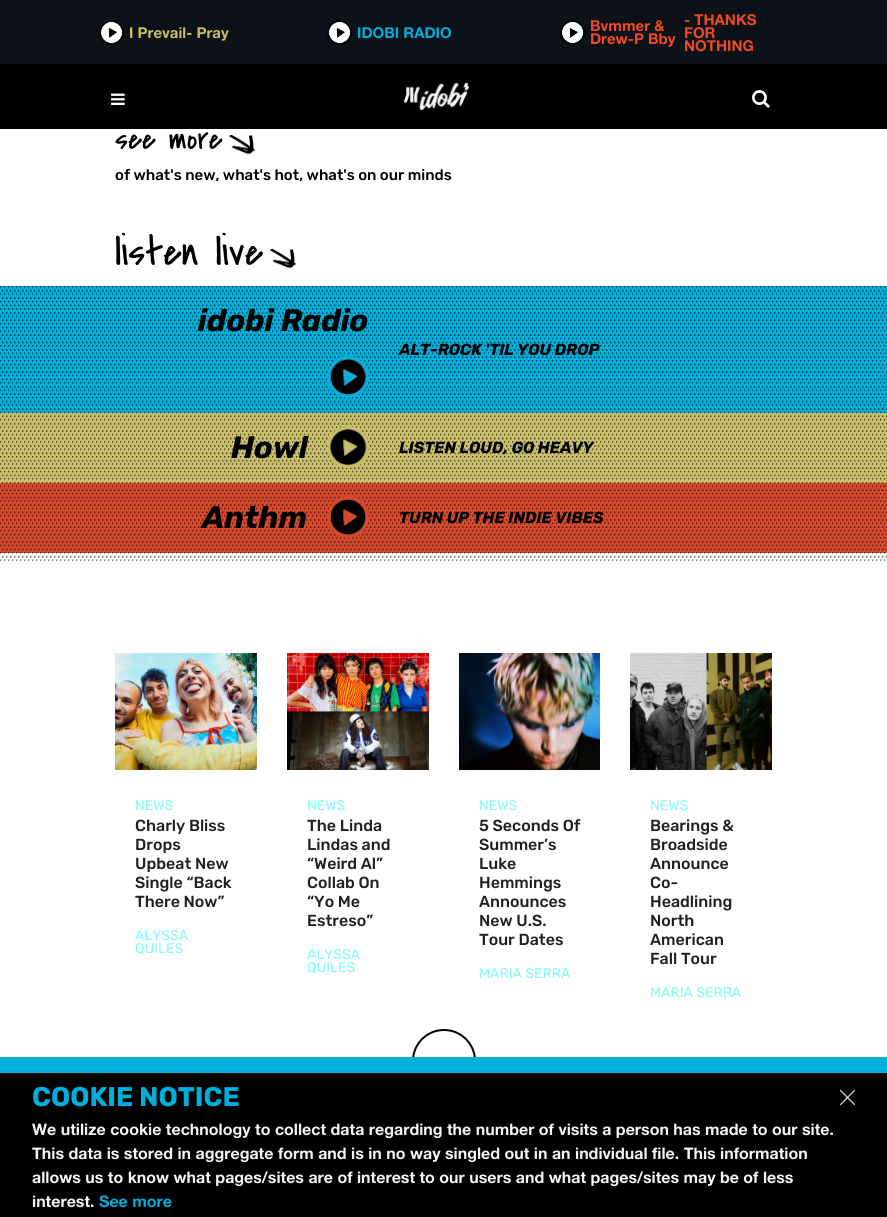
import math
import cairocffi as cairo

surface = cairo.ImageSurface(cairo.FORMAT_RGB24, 887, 1217)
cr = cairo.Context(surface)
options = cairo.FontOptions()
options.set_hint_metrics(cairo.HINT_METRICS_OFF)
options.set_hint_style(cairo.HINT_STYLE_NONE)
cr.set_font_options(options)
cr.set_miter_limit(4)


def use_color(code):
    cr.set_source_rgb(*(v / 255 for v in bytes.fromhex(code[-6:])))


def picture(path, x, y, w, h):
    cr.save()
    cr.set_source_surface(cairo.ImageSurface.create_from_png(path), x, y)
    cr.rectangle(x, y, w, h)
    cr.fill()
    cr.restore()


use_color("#ffffff")
cr.paint()
use_color("#000000")
cr.rectangle(0, 64, 887, 65)
cr.fill()
use_color("#0d1218")
cr.rectangle(0, 0, 887, 64)
cr.fill()
picture("img1.png", 99, 20, 25, 25)
cr.select_font_face("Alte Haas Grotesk", cairo.FONT_SLANT_NORMAL, cairo.FONT_WEIGHT_BOLD)
cr.set_font_size(15)
use_color("#cabe68")
cr.move_to(129, 38)
cr.show_text("I Prevail- Pray")
picture("img2.png", 327, 20, 25, 25)
use_color("#00aedb")
cr.move_to(357, 38)
cr.show_text("IDOBI RADIO")
picture("img2.png", 560, 20, 25, 25)
use_color("#f04924")
cr.move_to(590, 31)
cr.show_text("Bvmmer &")
cr.move_to(590, 44)
cr.show_text("Drew-P Bby")
cr.move_to(684, 25)
cr.show_text("- THANKS")
cr.move_to(684, 38)
cr.show_text("FOR")
cr.move_to(684, 51)
cr.show_text("NOTHING")
picture("img3.png", 111, 93, 14, 12)
picture("img4.png", 404, 83, 65, 27)
picture("img5.png", 752, 90, 18, 18)
cr.select_font_face("Covered By Your Grace")
cr.set_font_size(32)
use_color("#000000")
cr.move_to(115, 149)
cr.show_text("see more")
picture("img6.png", 229, 134, 26, 21)
cr.select_font_face("Rubik Medium")
cr.set_font_size(15)
cr.move_to(115, 180)
cr.show_text("of what's new, what's hot, what's on our minds")
cr.select_font_face("Covered By Your Grace")
cr.set_font_size(42)
cr.move_to(115, 265)
cr.show_text("listen live")
picture("img6.png", 270, 248, 26, 21)
use_color("#00aedb")
cr.rectangle(0, 286, 887, 127)
cr.fill()
use_color("#c9bf6a")
cr.rectangle(0, 413, 887, 70)
cr.fill()
use_color("#da482b")
cr.rectangle(0, 483, 887, 70)
cr.fill()
picture("img7.png", 0, 286, 887, 276)
cr.select_font_face("Rubik", cairo.FONT_SLANT_ITALIC, cairo.FONT_WEIGHT_BOLD)
cr.set_font_size(31)
use_color("#000000")
cr.move_to(198, 331)
cr.show_text("idobi Radio")
picture("img8.png", 327, 356, 42, 42)
cr.set_font_size(16)
cr.move_to(399, 355)
cr.show_text("ALT-ROCK 'TIL YOU DROP")
cr.set_font_size(31)
cr.move_to(231, 458)
cr.show_text("Howl")
picture("img9.png", 327, 426, 42, 42)
cr.set_font_size(16)
cr.move_to(399, 453)
cr.show_text("LISTEN LOUD, GO HEAVY")
cr.set_font_size(31)
cr.move_to(202, 528)
cr.show_text("Anthm")
picture("img10.png", 327, 496, 42, 42)
cr.set_font_size(16)
cr.move_to(399, 523)
cr.show_text("TURN UP THE INDIE VIBES")
picture("img11.png", 115, 653, 142, 117)
cr.select_font_face("Rubik")
cr.set_font_size(14)
use_color("#81fbfd")
cr.move_to(135, 810)
cr.show_text("NEWS")
cr.select_font_face("Rubik Medium")
cr.set_font_size(16)
use_color("#231f20")
cr.move_to(135, 831)
cr.show_text("Charly Bliss")
cr.move_to(135, 850)
cr.show_text("Drops")
cr.move_to(135, 869)
cr.show_text("Upbeat New")
cr.move_to(135, 888)
cr.show_text("Single “Back")
cr.move_to(135, 907)
cr.show_text("There Now”")
cr.select_font_face("Rubik")
cr.set_font_size(14)
use_color("#81fbfd")
cr.move_to(135, 940)
cr.show_text("ALYSSA")
cr.move_to(135, 953)
cr.show_text("QUILES")
picture("img12.png", 287, 653, 142, 117)
cr.move_to(307, 810)
cr.show_text("NEWS")
cr.select_font_face("Rubik Medium")
cr.set_font_size(16)
use_color("#231f20")
cr.move_to(307, 831)
cr.show_text("The Linda")
cr.move_to(307, 850)
cr.show_text("Lindas and")
cr.move_to(307, 869)
cr.show_text("“Weird Al”")
cr.move_to(307, 888)
cr.show_text("Collab On")
cr.move_to(307, 907)
cr.show_text("“Yo Me")
cr.move_to(307, 926)
cr.show_text("Estreso”")
cr.select_font_face("Rubik")
cr.set_font_size(14)
use_color("#81fbfd")
cr.move_to(307, 959)
cr.show_text("ALYSSA")
cr.move_to(307, 972)
cr.show_text("QUILES")
picture("img13.png", 459, 653, 141, 117)
cr.move_to(479, 810)
cr.show_text("NEWS")
cr.select_font_face("Rubik Medium")
cr.set_font_size(16)
use_color("#231f20")
cr.move_to(479, 831)
cr.show_text("5 Seconds Of")
cr.move_to(479, 850)
cr.show_text("Summer’s")
cr.move_to(479, 869)
cr.show_text("Luke")
cr.move_to(479, 888)
cr.show_text("Hemmings")
cr.move_to(479, 907)
cr.show_text("Announces")
cr.move_to(479, 926)
cr.show_text("New U.S.")
cr.move_to(479, 945)
cr.show_text("Tour Dates")
cr.select_font_face("Rubik")
cr.set_font_size(14)
use_color("#81fbfd")
cr.move_to(479, 978)
cr.show_text("MARIA SERRA")
picture("img14.png", 630, 653, 142, 117)
cr.move_to(650, 810)
cr.show_text("NEWS")
cr.select_font_face("Rubik Medium")
cr.set_font_size(16)
use_color("#231f20")
cr.move_to(650, 831)
cr.show_text("Bearings &")
cr.move_to(650, 850)
cr.show_text("Broadside")
cr.move_to(650, 869)
cr.show_text("Announce")
cr.move_to(650, 888)
cr.show_text("Co-")
cr.move_to(650, 907)
cr.show_text("Headlining")
cr.move_to(650, 926)
cr.show_text("North")
cr.move_to(650, 945)
cr.show_text("American")
cr.move_to(650, 964)
cr.show_text("Fall Tour")
cr.select_font_face("Rubik")
cr.set_font_size(14)
use_color("#81fbfd")
cr.move_to(650, 997)
cr.show_text("MARIA SERRA")
picture("img15.png", 412, 1029, 64, 28)
use_color("#000000")
cr.rectangle(0, 1073, 887, 144)
cr.fill()
use_color("#00aedb")
cr.rectangle(0, 1057, 887, 16)
cr.fill()
cr.select_font_face("Rubik", cairo.FONT_SLANT_NORMAL, cairo.FONT_WEIGHT_BOLD)
cr.set_font_size(27)
cr.move_to(32, 1106)
cr.show_text("COOKIE NOTICE")
picture("img16.png", 840, 1089, 15, 16)
cr.select_font_face("Alte Haas Grotesk", cairo.FONT_SLANT_NORMAL, cairo.FONT_WEIGHT_BOLD)
cr.set_font_size(16)
use_color("#f5f5f5")
cr.move_to(32, 1135)
cr.show_text("We utilize cookie technology to collect data regarding the number of visits a person has made to our site.")
cr.move_to(32, 1159)
cr.show_text("This data is stored in aggregate form and is in no way singled out in an individual file. This information")
cr.move_to(32, 1183)
cr.show_text("allows us to know what pages/sites are of interest to our users and what pages/sites may be of less")
cr.move_to(32, 1207)
cr.show_text("interest.")
use_color("#00aedb")
cr.move_to(99, 1207)
cr.show_text("See more")
surface.write_to_png("result.png")
